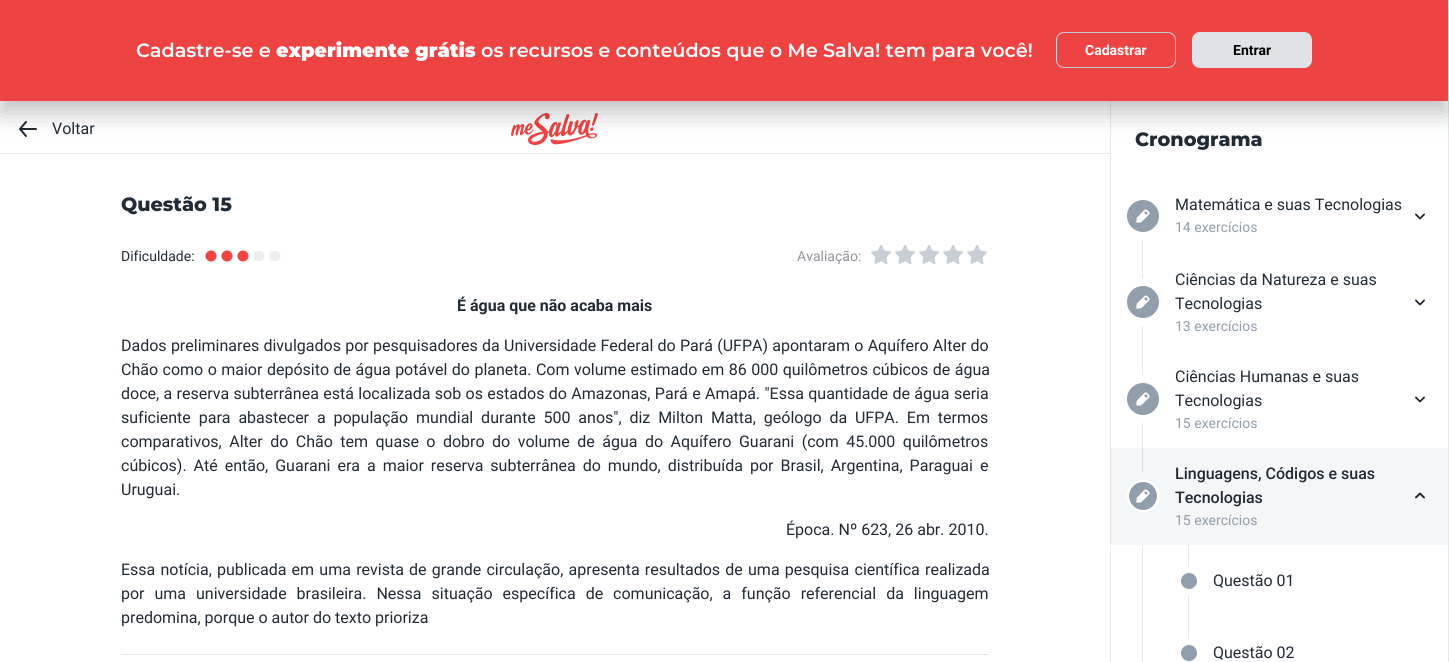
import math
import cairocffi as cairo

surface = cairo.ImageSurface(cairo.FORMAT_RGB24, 1449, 662)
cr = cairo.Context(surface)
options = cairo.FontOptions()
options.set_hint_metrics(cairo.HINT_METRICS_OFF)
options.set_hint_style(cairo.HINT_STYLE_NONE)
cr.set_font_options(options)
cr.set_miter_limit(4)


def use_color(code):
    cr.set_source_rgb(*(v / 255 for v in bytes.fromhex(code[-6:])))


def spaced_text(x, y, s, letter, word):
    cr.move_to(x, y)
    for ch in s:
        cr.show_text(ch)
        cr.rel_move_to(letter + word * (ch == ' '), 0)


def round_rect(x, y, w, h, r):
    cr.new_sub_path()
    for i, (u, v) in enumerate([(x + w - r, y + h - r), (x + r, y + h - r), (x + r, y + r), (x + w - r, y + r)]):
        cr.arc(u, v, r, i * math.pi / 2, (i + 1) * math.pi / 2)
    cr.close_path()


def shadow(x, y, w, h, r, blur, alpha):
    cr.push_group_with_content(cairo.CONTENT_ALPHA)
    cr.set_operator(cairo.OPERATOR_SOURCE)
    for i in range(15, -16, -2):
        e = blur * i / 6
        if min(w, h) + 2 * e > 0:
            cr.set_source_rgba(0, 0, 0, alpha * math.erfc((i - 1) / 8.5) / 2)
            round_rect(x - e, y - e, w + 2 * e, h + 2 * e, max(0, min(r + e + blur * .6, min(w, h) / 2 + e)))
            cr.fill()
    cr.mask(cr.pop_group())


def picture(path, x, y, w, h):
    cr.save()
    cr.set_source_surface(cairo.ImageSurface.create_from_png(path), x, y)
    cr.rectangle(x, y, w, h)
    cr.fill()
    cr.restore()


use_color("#ffffff")
cr.paint()
use_color("#e5e8eb")
cr.rectangle(1448, 0, 1, 662)
cr.fill()
picture("img1.png", 19, 121, 18, 16)
picture("img2.png", 511, 113, 87, 32)
cr.rectangle(1110, 101, 1, 561)
cr.fill()
use_color("#000000")
shadow(0, 12, 1448, 101, 0, 12, 0.24)
use_color("#929f8e")
shadow(0, 0, 1448, 101, 0, 1, 0.24)
use_color("#ed4343")
cr.rectangle(0, 0, 1448, 101)
cr.fill()
cr.select_font_face("Montserrat SemiBold")
cr.set_font_size(19.2)
use_color("#ffffff")
cr.move_to(136, 57)
cr.show_text("Cadastre-se e")
cr.select_font_face("Montserrat Black")
cr.move_to(276, 57)
cr.show_text("experimente grátis")
cr.select_font_face("Montserrat SemiBold")
cr.move_to(481, 57)
cr.show_text("os recursos e conteúdos que o Me Salva! tem para você!")
round_rect(1056.5, 32.5, 119, 35, 7.5)
use_color("#c4cdd5")
cr.set_line_width(1)
cr.stroke()
cr.select_font_face("Roboto", cairo.FONT_SLANT_NORMAL, cairo.FONT_WEIGHT_BOLD)
cr.set_font_size(14)
use_color("#ffffff")
cr.move_to(1085, 55)
cr.show_text("Cadastrar")
use_color("#dfe3e8")
round_rect(1192, 32, 120, 36, 8)
cr.fill()
use_color("#000000")
cr.move_to(1233, 55)
cr.show_text("Entrar")
cr.select_font_face("Roboto")
cr.set_font_size(16)
use_color("#212b36")
cr.move_to(52, 134)
cr.show_text("Voltar")
use_color("#e5e8eb")
cr.rectangle(0, 153, 1110, 1)
cr.fill()
cr.select_font_face("Montserrat ExtraBold")
cr.set_font_size(19.2)
use_color("#212b36")
cr.move_to(121, 211)
cr.show_text("Questão 15")
cr.select_font_face("Roboto")
cr.set_font_size(14)
cr.move_to(121, 261)
cr.show_text("Dificuldade:")
use_color("#ed4343")
cr.new_path()
cr.arc(211, 256, 5.5, 0, 2 * math.pi)
cr.fill()
cr.arc(227, 256, 5.5, 0, 2 * math.pi)
cr.fill()
cr.arc(243, 256, 5.5, 0, 2 * math.pi)
cr.fill()
use_color("#edeff2")
cr.arc(259, 256, 5.5, 0, 2 * math.pi)
cr.fill()
cr.arc(275, 256, 5.5, 0, 2 * math.pi)
cr.fill()
use_color("#90959b")
cr.move_to(797, 261)
cr.show_text("Avaliação:")
picture("img3.png", 871, 245, 20, 19)
picture("img3.png", 895, 245, 20, 19)
picture("img3.png", 919, 245, 20, 19)
picture("img3.png", 943, 245, 20, 19)
picture("img3.png", 967, 245, 20, 19)
cr.select_font_face("Roboto", cairo.FONT_SLANT_NORMAL, cairo.FONT_WEIGHT_BOLD)
cr.set_font_size(16)
use_color("#212b36")
cr.move_to(457, 311)
cr.show_text("É água que não acaba mais")
cr.select_font_face("Roboto")
spaced_text(121, 351, "Dados preliminares divulgados por pesquisadores da Universidade Federal do Pará (UFPA) apontaram o Aquífero Alter do", 0, 0.3)
spaced_text(121, 375, "Chão como o maior depósito de água potável do planeta. Com volume estimado em 86 000 quilômetros cúbicos de água", 0, 0.5)
spaced_text(121, 399, "doce, a reserva subterrânea está localizada sob os estados do Amazonas, Pará e Amapá. \"Essa quantidade de água seria", 0, 0.4)
spaced_text(121, 423, "suficiente para abastecer a população mundial durante 500 anos\", diz Milton Matta, geólogo da UFPA. Em termos", 0, 3.9)
spaced_text(121, 447, "comparativos, Alter do Chão tem quase o dobro do volume de água do Aquífero Guarani (com 45.000 quilômetros", 0, 3.5)
spaced_text(121, 471, "cúbicos). Até então, Guarani era a maior reserva subterrânea do mundo, distribuída por Brasil, Argentina, Paraguai e", 0, 3)
cr.move_to(121, 495)
cr.show_text("Uruguai.")
cr.move_to(786, 535)
cr.show_text("Época. Nº 623, 26 abr. 2010.")
spaced_text(121, 575, "Essa notícia, publicada em uma revista de grande circulação, apresenta resultados de uma pesquisa científica realizada", 0, 1.25)
spaced_text(121, 599, "por uma universidade brasileira. Nessa situação específica de comunicação, a função referencial da linguagem", 0, 6)
cr.move_to(121, 623)
cr.show_text("predomina, porque o autor do texto prioriza")
use_color("#e5e8eb")
cr.rectangle(121, 654, 868, 1)
cr.fill()
cr.select_font_face("Montserrat ExtraBold")
cr.set_font_size(19.2)
use_color("#212b36")
cr.move_to(1135, 146)
cr.show_text("Cronograma")
use_color("#919eab")
cr.new_path()
cr.arc(1143, 216, 16, 0, 2 * math.pi)
cr.fill()
picture("img4.png", 1136, 209, 14, 14)
use_color("#e5e8eb")
cr.rectangle(1142, 240, 1, 38)
cr.fill()
cr.select_font_face("Roboto")
cr.set_font_size(16)
use_color("#212b36")
cr.move_to(1175, 210)
cr.show_text("Matemática e suas Tecnologias")
cr.set_font_size(14)
use_color("#919eab")
cr.move_to(1175, 232)
cr.show_text("14 exercícios")
picture("img5.png", 1415, 213, 10, 7)
cr.arc(1143, 302, 16, 0, 2 * math.pi)
cr.fill()
picture("img4.png", 1136, 295, 14, 14)
use_color("#e5e8eb")
cr.rectangle(1142, 326, 1, 49)
cr.fill()
cr.set_font_size(16)
use_color("#212b36")
cr.move_to(1175, 285)
cr.show_text("Ciências da Natureza e suas")
cr.move_to(1175, 309)
cr.show_text("Tecnologias")
cr.set_font_size(14)
use_color("#919eab")
cr.move_to(1175, 331)
cr.show_text("13 exercícios")
picture("img5.png", 1415, 299, 10, 7)
cr.arc(1143, 399, 16, 0, 2 * math.pi)
cr.fill()
picture("img4.png", 1136, 392, 14, 14)
use_color("#e5e8eb")
cr.rectangle(1142, 423, 1, 25)
cr.fill()
cr.set_font_size(16)
use_color("#212b36")
cr.move_to(1175, 382)
cr.show_text("Ciências Humanas e suas")
cr.move_to(1175, 406)
cr.show_text("Tecnologias")
cr.set_font_size(14)
use_color("#919eab")
cr.move_to(1175, 428)
cr.show_text("15 exercícios")
picture("img5.png", 1415, 396, 10, 7)
use_color("#f4f6f8")
cr.rectangle(1111, 448, 337, 97)
cr.fill()
use_color("#dce1e6")
cr.rectangle(1142, 448, 1, 24)
cr.fill()
use_color("#919eab")
cr.arc(1143, 496, 15, 0, 2 * math.pi)
cr.fill_preserve()
use_color("#ffffff")
cr.set_line_width(2)
cr.stroke()
picture("img4.png", 1136, 489, 14, 14)
cr.select_font_face("Roboto Medium")
cr.set_font_size(16)
use_color("#212b36")
cr.move_to(1175, 479)
cr.show_text("Linguagens, Códigos e suas")
cr.move_to(1175, 503)
cr.show_text("Tecnologias")
cr.select_font_face("Roboto")
cr.set_font_size(14)
use_color("#919eab")
cr.move_to(1175, 525)
cr.show_text("15 exercícios")
picture("img6.png", 1415, 492, 10, 7)
use_color("#e5e8eb")
cr.rectangle(1142, 545, 1, 117)
cr.fill()
use_color("#919eab")
cr.arc(1189, 581, 8, 0, 2 * math.pi)
cr.fill()
use_color("#e5e8eb")
cr.rectangle(1188, 545, 1, 22)
cr.fill()
cr.rectangle(1188, 595, 1, 44)
cr.fill()
cr.set_font_size(16)
use_color("#212b36")
cr.move_to(1213, 586)
cr.show_text("Questão 01")
use_color("#919eab")
cr.new_path()
cr.arc(1189, 653, 8, 0, 2 * math.pi)
cr.fill()
use_color("#212b36")
cr.move_to(1213, 658)
cr.show_text("Questão 02")
surface.write_to_png("result.png")
